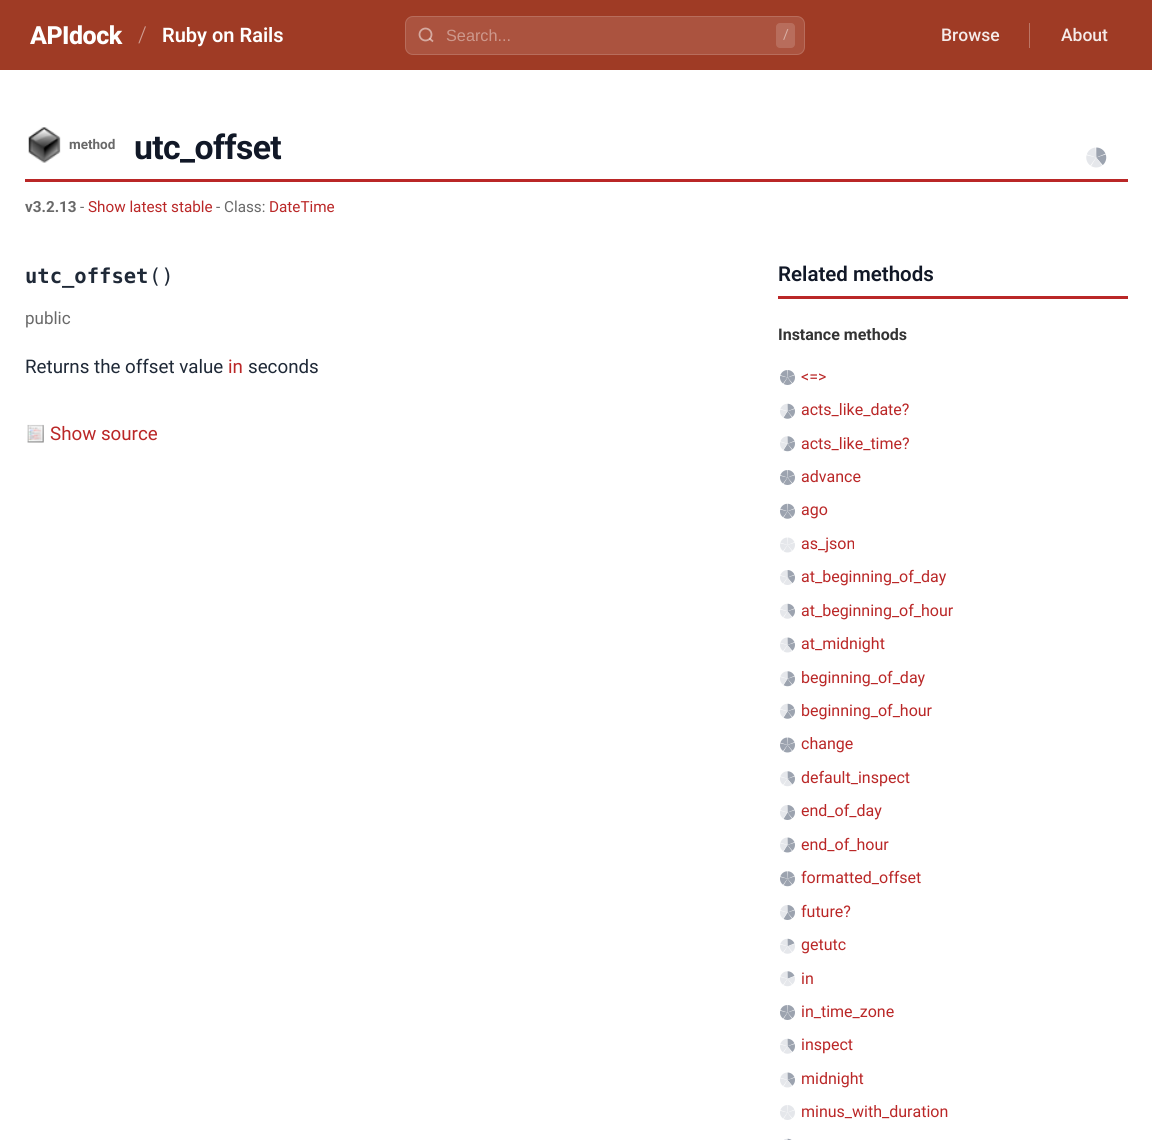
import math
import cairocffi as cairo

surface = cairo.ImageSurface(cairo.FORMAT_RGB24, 1152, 1140)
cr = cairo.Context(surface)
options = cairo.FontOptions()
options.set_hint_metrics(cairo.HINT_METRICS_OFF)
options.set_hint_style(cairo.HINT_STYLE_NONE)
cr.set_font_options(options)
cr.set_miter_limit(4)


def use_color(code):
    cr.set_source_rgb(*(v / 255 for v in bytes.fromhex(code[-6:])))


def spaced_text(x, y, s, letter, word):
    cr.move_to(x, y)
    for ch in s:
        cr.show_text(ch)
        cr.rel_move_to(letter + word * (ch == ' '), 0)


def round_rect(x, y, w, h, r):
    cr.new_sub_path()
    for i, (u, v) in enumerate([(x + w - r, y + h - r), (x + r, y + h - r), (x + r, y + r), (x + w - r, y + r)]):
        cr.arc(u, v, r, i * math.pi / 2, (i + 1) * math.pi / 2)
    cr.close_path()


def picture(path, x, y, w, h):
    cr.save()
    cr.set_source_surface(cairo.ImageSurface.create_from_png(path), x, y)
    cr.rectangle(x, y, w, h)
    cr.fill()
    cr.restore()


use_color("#ffffff")
cr.paint()
use_color("#9f3b25")
cr.rectangle(0, 0, 1152, 70)
cr.fill()
cr.select_font_face("Roboto ExtraBold")
cr.set_font_size(25)
use_color("#ffffff")
spaced_text(30, 44, "APIdock", -0.5, 0)
cr.select_font_face("Roboto Light")
cr.set_font_size(22)
use_color("#cf9d92")
cr.move_to(138, 42)
cr.show_text("/")
cr.select_font_face("Roboto SemiBold")
cr.set_font_size(20)
use_color("#ffffff")
cr.move_to(162, 42)
cr.show_text("Ruby on Rails")
use_color("#ab533f")
round_rect(405, 16, 400, 39, 8)
cr.fill()
round_rect(405.5, 16.5, 399, 38, 7.5)
cr.set_source_rgba(1, 1, 1, 0.15)
cr.set_line_width(1)
cr.stroke()
cr.arc(425.5, 34.5, 6, 0, 2 * math.pi)
use_color("#d5a99f")
cr.set_line_width(1.8)
cr.stroke()
cr.new_path()
cr.move_to(433, 41.5)
cr.line_to(429.5, 38.5)
cr.set_source_rgba(1, 1, 1, 0.5)
cr.stroke()
cr.select_font_face("Liberation Sans")
cr.set_font_size(16.25)
use_color("#cd988c")
cr.move_to(446, 41)
cr.show_text("Search...")
use_color("#b86d5c")
round_rect(776, 23, 19, 25, 4)
cr.fill()
cr.select_font_face("Roboto")
cr.set_font_size(14)
use_color("#d8afa5")
cr.move_to(783, 39)
cr.show_text("/")
cr.select_font_face("Roboto Medium")
cr.set_font_size(17.5)
use_color("#f5ebe9")
cr.move_to(941, 41)
cr.show_text("Browse")
use_color("#bc7666")
cr.rectangle(1029, 23, 1, 25)
cr.fill()
use_color("#f5ebe9")
cr.move_to(1061, 41)
cr.show_text("About")
use_color("#ba2727")
cr.rectangle(25, 179, 1103, 3)
cr.fill()
picture("img1.png", 28, 127, 33, 36)
cr.select_font_face("Roboto", cairo.FONT_SLANT_NORMAL, cairo.FONT_WEIGHT_BOLD)
cr.set_font_size(13.5)
use_color("#696969")
cr.move_to(69, 149)
cr.show_text("method")
cr.set_font_size(33.75)
use_color("#111827")
spaced_text(134, 159, "utc_offset", -0.6, 0)
picture("img2.png", 1086, 147, 21, 21)
cr.set_font_size(15.25)
use_color("#696969")
cr.move_to(25, 212)
cr.show_text("v3.2.13")
cr.select_font_face("Roboto")
cr.move_to(80, 212)
cr.show_text("-")
use_color("#ba2727")
cr.move_to(88, 212)
cr.show_text("Show latest stable")
use_color("#696969")
cr.move_to(216, 212)
cr.show_text("- Class:")
use_color("#ba2727")
cr.move_to(269, 212)
cr.show_text("DateTime")
cr.select_font_face("DejaVu Sans Mono", cairo.FONT_SLANT_NORMAL, cairo.FONT_WEIGHT_BOLD)
cr.set_font_size(20.5)
use_color("#1f2937")
cr.move_to(25, 283)
cr.show_text("utc_offset")
cr.select_font_face("DejaVu Sans Mono")
cr.move_to(149, 283)
cr.show_text("()")
cr.select_font_face("Roboto")
cr.set_font_size(17)
use_color("#696969")
cr.move_to(25, 324)
cr.show_text("public")
cr.set_font_size(18.75)
use_color("#1f2937")
cr.move_to(25, 373)
cr.show_text("Returns the offset value")
use_color("#ba2727")
cr.move_to(228, 373)
cr.show_text("in")
use_color("#1f2937")
cr.move_to(248, 373)
cr.show_text("seconds")
picture("img3.png", 27, 424, 17, 19)
use_color("#ba2727")
cr.move_to(50, 440)
cr.show_text("Show source")
cr.rectangle(778, 296, 350, 3)
cr.fill()
cr.select_font_face("Roboto SemiBold")
cr.set_font_size(20.5)
use_color("#111827")
cr.move_to(778, 281)
cr.show_text("Related methods")
cr.select_font_face("Roboto", cairo.FONT_SLANT_NORMAL, cairo.FONT_WEIGHT_BOLD)
cr.set_font_size(16)
use_color("#333333")
cr.move_to(778, 340)
cr.show_text("Instance methods")
picture("img4.png", 780, 370, 15, 15)
cr.select_font_face("Roboto")
use_color("#ba2727")
cr.move_to(801, 382)
cr.show_text("<=>")
picture("img5.png", 780, 403, 15, 16)
cr.move_to(801, 415)
cr.show_text("acts_like_date?")
picture("img6.png", 780, 436, 15, 16)
cr.move_to(801, 449)
cr.show_text("acts_like_time?")
picture("img4.png", 780, 470, 15, 15)
cr.move_to(801, 482)
cr.show_text("advance")
picture("img7.png", 780, 503, 15, 16)
cr.move_to(801, 515)
cr.show_text("ago")
picture("img8.png", 780, 537, 15, 16)
cr.move_to(801, 549)
cr.show_text("as_json")
picture("img9.png", 780, 570, 15, 15)
cr.move_to(801, 582)
cr.show_text("at_beginning_of_day")
picture("img10.png", 780, 603, 15, 16)
cr.move_to(801, 616)
cr.show_text("at_beginning_of_hour")
picture("img11.png", 780, 637, 15, 16)
cr.move_to(801, 649)
cr.show_text("at_midnight")
picture("img6.png", 780, 671, 15, 16)
cr.move_to(801, 683)
cr.show_text("beginning_of_day")
picture("img5.png", 780, 703, 15, 16)
cr.move_to(801, 716)
cr.show_text("beginning_of_hour")
picture("img12.png", 780, 737, 15, 16)
cr.move_to(801, 749)
cr.show_text("change")
picture("img13.png", 780, 771, 15, 16)
cr.move_to(801, 783)
cr.show_text("default_inspect")
picture("img14.png", 780, 805, 15, 15)
cr.move_to(801, 816)
cr.show_text("end_of_day")
picture("img15.png", 780, 837, 15, 16)
cr.move_to(801, 850)
cr.show_text("end_of_hour")
picture("img16.png", 780, 871, 15, 16)
cr.move_to(801, 883)
cr.show_text("formatted_offset")
picture("img14.png", 780, 905, 15, 15)
cr.move_to(801, 917)
cr.show_text("future?")
picture("img17.png", 780, 938, 15, 16)
cr.move_to(801, 950)
cr.show_text("getutc")
picture("img18.png", 780, 971, 15, 16)
cr.move_to(801, 984)
cr.show_text("in")
picture("img4.png", 780, 1005, 15, 15)
cr.move_to(801, 1017)
cr.show_text("in_time_zone")
picture("img10.png", 780, 1038, 15, 16)
cr.move_to(801, 1050)
cr.show_text("inspect")
picture("img11.png", 780, 1072, 15, 16)
cr.move_to(801, 1084)
cr.show_text("midnight")
picture("img19.png", 780, 1105, 15, 15)
cr.move_to(801, 1117)
cr.show_text("minus_with_duration")
picture("img20.png", 784, 1138, 8, 2)
surface.write_to_png("result.png")
